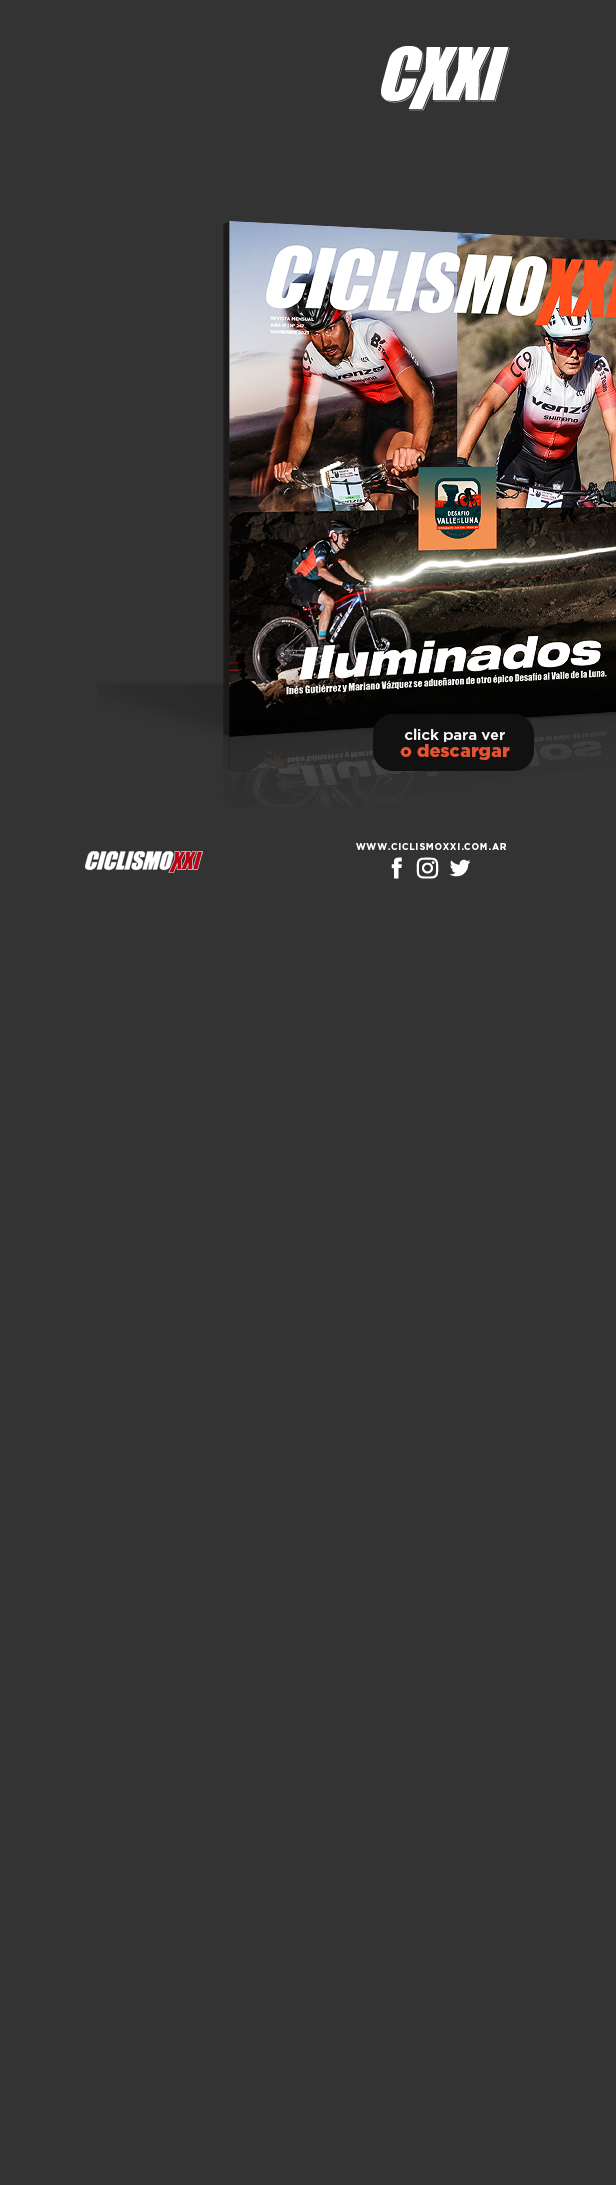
import math
import cairocffi as cairo

surface = cairo.ImageSurface(cairo.FORMAT_RGB24, 616, 2185)
cr = cairo.Context(surface)
options = cairo.FontOptions()
options.set_hint_metrics(cairo.HINT_METRICS_OFF)
options.set_hint_style(cairo.HINT_STYLE_NONE)
cr.set_font_options(options)
cr.set_miter_limit(4)


def use_color(code):
    cr.set_source_rgb(*(v / 255 for v in bytes.fromhex(code[-6:])))


def picture(path, x, y, w, h):
    cr.save()
    cr.set_source_surface(cairo.ImageSurface.create_from_png(path), x, y)
    cr.rectangle(x, y, w, h)
    cr.fill()
    cr.restore()


use_color("#333333")
cr.paint()
picture("img1.png", 381, 46, 129, 65)
picture("img2.png", 97, 221, 519, 586)
picture("img3.png", 85, 843, 421, 36)
surface.write_to_png("result.png")
